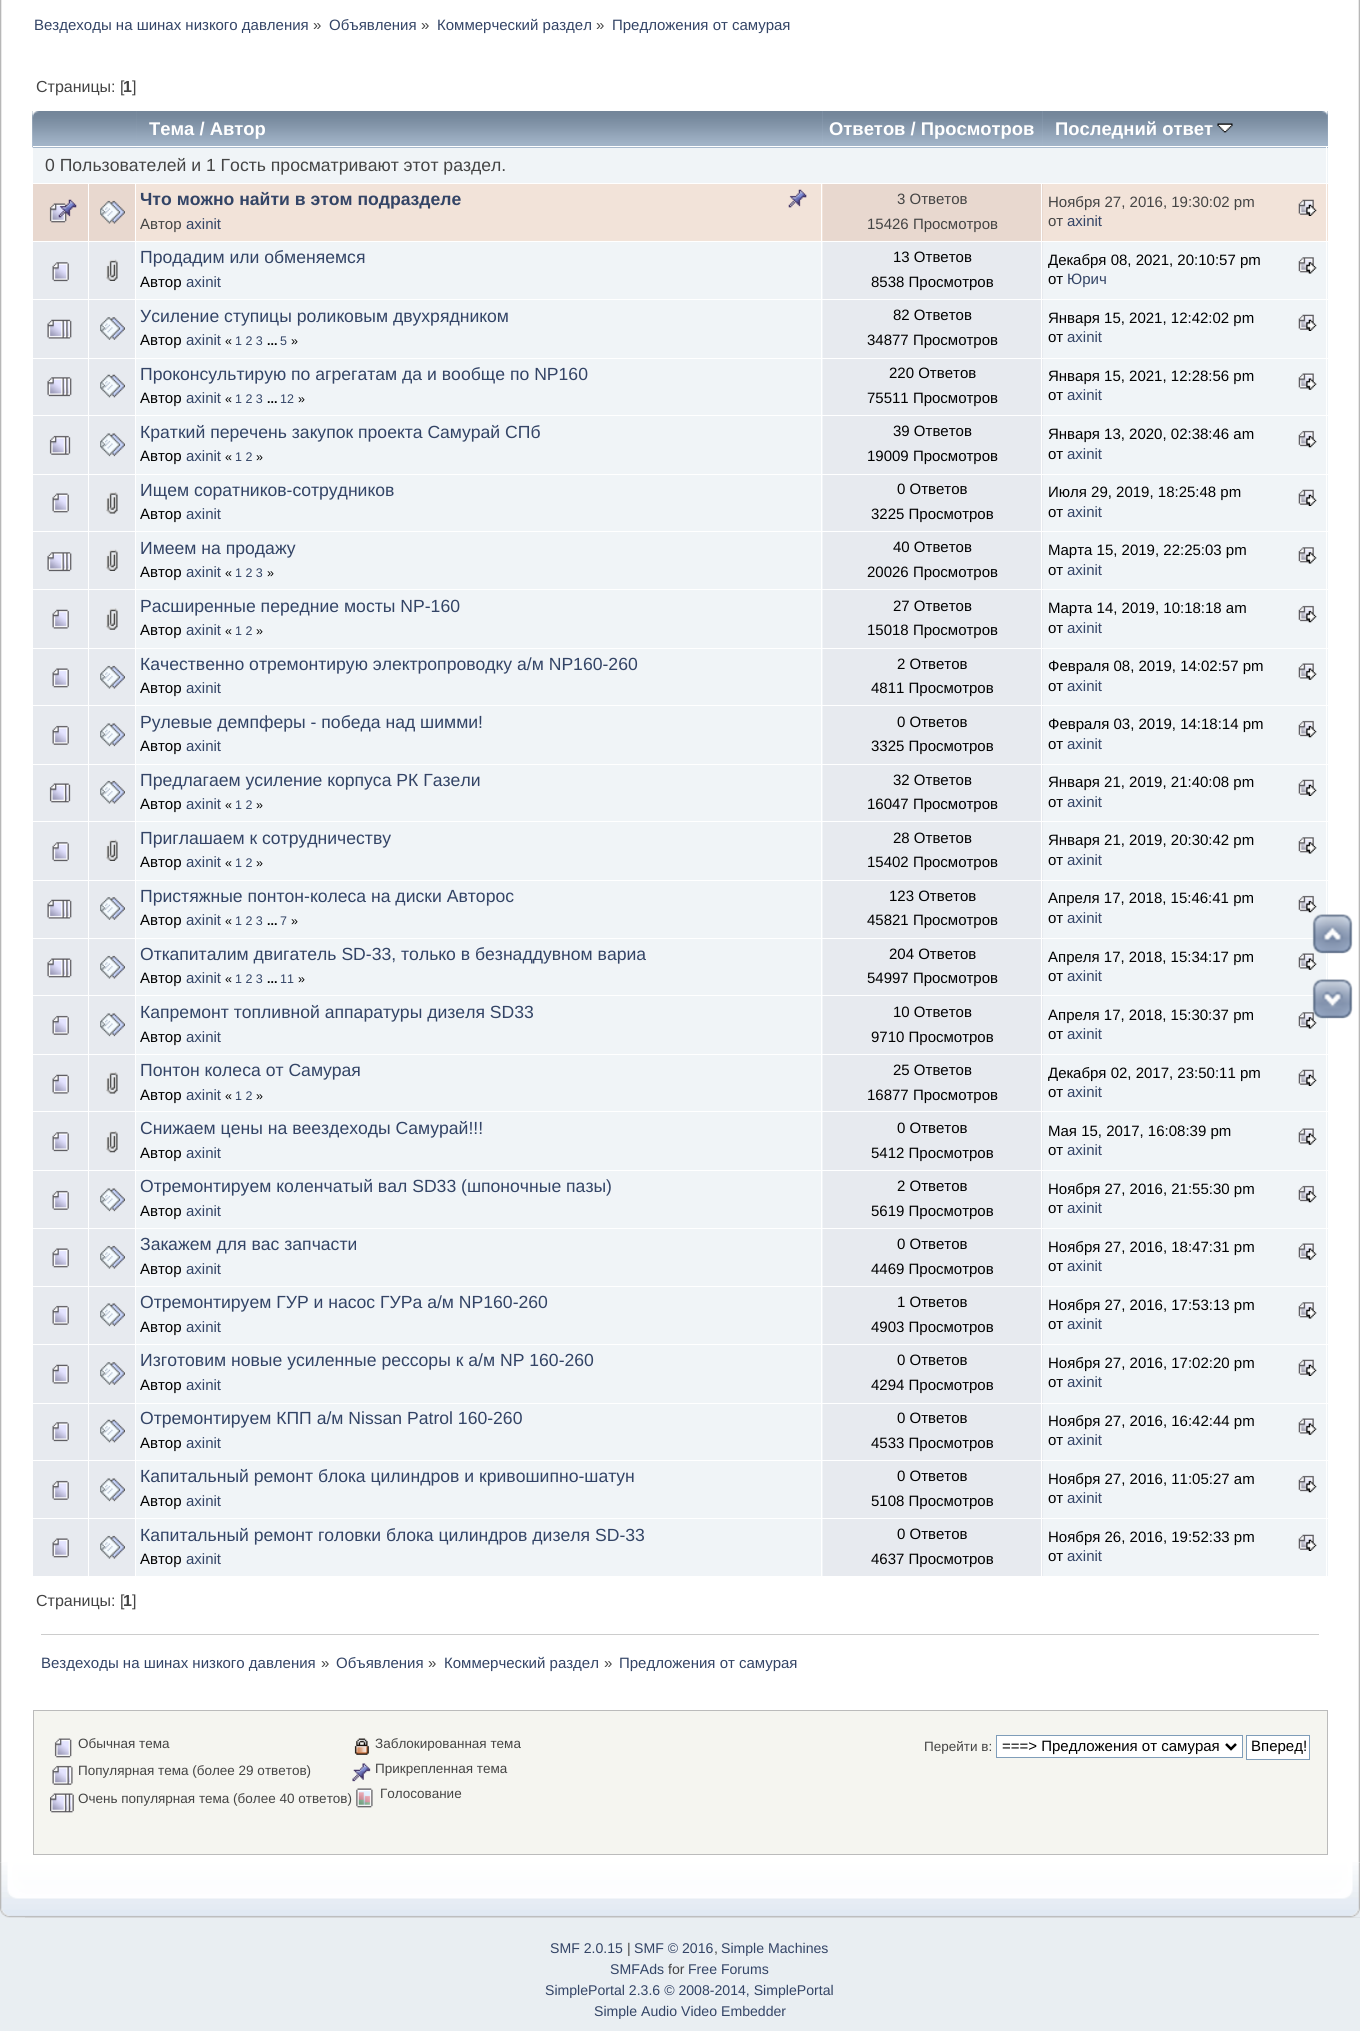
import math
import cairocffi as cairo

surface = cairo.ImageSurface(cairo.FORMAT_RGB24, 1360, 2031)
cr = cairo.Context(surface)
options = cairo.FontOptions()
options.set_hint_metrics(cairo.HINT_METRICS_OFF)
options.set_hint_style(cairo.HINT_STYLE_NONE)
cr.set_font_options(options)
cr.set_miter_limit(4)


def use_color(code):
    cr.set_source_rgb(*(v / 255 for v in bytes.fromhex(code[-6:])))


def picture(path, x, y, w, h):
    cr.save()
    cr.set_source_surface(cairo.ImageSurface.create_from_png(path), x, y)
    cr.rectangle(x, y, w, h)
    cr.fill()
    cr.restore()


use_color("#e9eef2")
cr.paint()
use_color("#ffffff")
cr.rectangle(0, 0, 1360, 1863)
cr.fill()
picture("img1.png", 0, 0, 2, 1863)
picture("img2.png", 1358, 0, 2, 1863)
cr.select_font_face("Liberation Sans")
cr.set_font_size(15)
use_color("#334466")
cr.move_to(34, 30)
cr.show_text("Вездеходы на шинах низкого давления")
use_color("#444444")
cr.move_to(313, 30)
cr.show_text("»")
use_color("#334466")
cr.move_to(329, 30)
cr.show_text("Объявления")
use_color("#444444")
cr.move_to(421, 30)
cr.show_text("»")
use_color("#334466")
cr.move_to(437, 30)
cr.show_text("Коммерческий раздел")
use_color("#444444")
cr.move_to(596, 30)
cr.show_text("»")
use_color("#334466")
cr.move_to(612, 30)
cr.show_text("Предложения от самурая")
cr.set_font_size(16)
use_color("#444444")
cr.move_to(36, 92)
cr.show_text("Страницы: [")
cr.select_font_face("Liberation Sans", cairo.FONT_SLANT_NORMAL, cairo.FONT_WEIGHT_BOLD)
cr.move_to(123, 92)
cr.show_text("1")
cr.select_font_face("Liberation Sans")
cr.move_to(132, 92)
cr.show_text("]")
use_color("#a7b9cd")
cr.rectangle(33, 111, 1295, 37)
cr.fill()
picture("img3.png", 32, 111, 104, 37)
use_color("#ffffff")
cr.rectangle(33, 146, 1295, 1)
cr.fill()
picture("img4.png", 136, 111, 687, 35)
cr.select_font_face("Liberation Sans", cairo.FONT_SLANT_NORMAL, cairo.FONT_WEIGHT_BOLD)
cr.set_font_size(18.4)
cr.move_to(149, 135)
cr.show_text("Тема / Автор")
picture("img5.png", 822, 111, 221, 35)
cr.move_to(829, 135)
cr.show_text("Ответов / Просмотров")
picture("img6.png", 1042, 111, 286, 35)
cr.move_to(1055, 135)
cr.show_text("Последний ответ")
picture("img7.png", 1217, 123, 16, 10)
use_color("#f0f4f7")
cr.rectangle(33, 148, 1295, 35)
cr.fill()
cr.select_font_face("Liberation Sans")
cr.set_font_size(17.6)
use_color("#444444")
cr.move_to(45, 171)
cr.show_text("0 Пользователей и 1 Гость просматривают этот раздел.")
use_color("#e8d8cf")
cr.rectangle(33, 184, 55, 57)
cr.fill()
picture("img8.png", 49, 199, 28, 24)
cr.rectangle(89, 184, 46, 57)
cr.fill()
picture("img9.png", 100, 200, 25, 24)
use_color("#f2e3d9")
cr.rectangle(136, 184, 687, 57)
cr.fill()
picture("img10.png", 788, 189, 19, 19)
cr.select_font_face("Liberation Sans", cairo.FONT_SLANT_NORMAL, cairo.FONT_WEIGHT_BOLD)
use_color("#334466")
cr.move_to(140, 205)
cr.show_text("Что можно найти в этом подразделе")
cr.select_font_face("Liberation Sans")
cr.set_font_size(15)
use_color("#444444")
cr.move_to(140, 229)
cr.show_text("Автор")
use_color("#334466")
cr.move_to(186, 229)
cr.show_text("axinit")
use_color("#e8d8cf")
cr.rectangle(823, 184, 220, 57)
cr.fill()
use_color("#444444")
cr.move_to(897, 204)
cr.show_text("3 Ответов")
cr.move_to(867, 229)
cr.show_text("15426 Просмотров")
use_color("#f2e3d9")
cr.rectangle(1043, 184, 285, 57)
cr.fill()
use_color("#444444")
cr.move_to(1048, 207)
cr.show_text("Ноября 27, 2016, 19:30:02 pm")
picture("img11.png", 1298, 199, 19, 17)
cr.move_to(1048, 226)
cr.show_text("от")
use_color("#334466")
cr.move_to(1067, 226)
cr.show_text("axinit")
use_color("#e7eaef")
cr.rectangle(33, 242, 55, 57)
cr.fill()
picture("img12.png", 52, 262, 17, 20)
cr.rectangle(89, 242, 46, 57)
cr.fill()
picture("img13.png", 106, 259, 12, 22)
use_color("#f0f4f7")
cr.rectangle(136, 242, 687, 57)
cr.fill()
cr.set_font_size(17.6)
use_color("#334466")
cr.move_to(140, 263)
cr.show_text("Продадим или обменяемся")
cr.set_font_size(15)
use_color("#000000")
cr.move_to(140, 287)
cr.show_text("Автор")
use_color("#334466")
cr.move_to(186, 287)
cr.show_text("axinit")
use_color("#e7eaef")
cr.rectangle(823, 242, 220, 57)
cr.fill()
use_color("#000000")
cr.move_to(893, 262)
cr.show_text("13 Ответов")
cr.move_to(871, 287)
cr.show_text("8538 Просмотров")
use_color("#f0f4f7")
cr.rectangle(1043, 242, 285, 57)
cr.fill()
use_color("#000000")
cr.move_to(1048, 265)
cr.show_text("Декабря 08, 2021, 20:10:57 pm")
picture("img14.png", 1298, 257, 19, 17)
cr.move_to(1048, 284)
cr.show_text("от")
use_color("#334466")
cr.move_to(1067, 284)
cr.show_text("Юрич")
use_color("#e7eaef")
cr.rectangle(33, 300, 55, 58)
cr.fill()
picture("img15.png", 47, 319, 25, 20)
cr.rectangle(89, 300, 46, 58)
cr.fill()
picture("img16.png", 100, 317, 25, 23)
use_color("#f0f4f7")
cr.rectangle(136, 300, 687, 58)
cr.fill()
cr.set_font_size(17.6)
use_color("#334466")
cr.move_to(140, 322)
cr.show_text("Усиление ступицы роликовым двухрядником")
cr.set_font_size(15)
use_color("#000000")
cr.move_to(140, 345)
cr.show_text("Автор")
use_color("#334466")
cr.move_to(186, 345)
cr.show_text("axinit")
cr.set_font_size(12.5)
use_color("#000000")
cr.move_to(225, 345)
cr.show_text("«")
use_color("#334466")
cr.move_to(235, 345)
cr.show_text("1 2 3")
cr.select_font_face("Liberation Sans", cairo.FONT_SLANT_NORMAL, cairo.FONT_WEIGHT_BOLD)
use_color("#000000")
cr.move_to(267, 345)
cr.show_text("...")
cr.select_font_face("Liberation Sans")
use_color("#334466")
cr.move_to(280, 345)
cr.show_text("5")
use_color("#000000")
cr.move_to(291, 345)
cr.show_text("»")
use_color("#e7eaef")
cr.rectangle(823, 300, 220, 58)
cr.fill()
cr.set_font_size(15)
use_color("#000000")
cr.move_to(893, 320)
cr.show_text("82 Ответов")
cr.move_to(867, 345)
cr.show_text("34877 Просмотров")
use_color("#f0f4f7")
cr.rectangle(1043, 300, 285, 58)
cr.fill()
use_color("#000000")
cr.move_to(1048, 323)
cr.show_text("Января 15, 2021, 12:42:02 pm")
picture("img17.png", 1298, 314, 19, 17)
cr.move_to(1048, 342)
cr.show_text("от")
use_color("#334466")
cr.move_to(1067, 342)
cr.show_text("axinit")
use_color("#e7eaef")
cr.rectangle(33, 359, 55, 56)
cr.fill()
picture("img18.png", 47, 377, 25, 20)
cr.rectangle(89, 359, 46, 56)
cr.fill()
picture("img19.png", 100, 374, 25, 24)
use_color("#f0f4f7")
cr.rectangle(136, 359, 687, 56)
cr.fill()
cr.set_font_size(17.6)
use_color("#334466")
cr.move_to(140, 380)
cr.show_text("Проконсультирую по агрегатам да и вообще по NP160")
cr.set_font_size(15)
use_color("#000000")
cr.move_to(140, 403)
cr.show_text("Автор")
use_color("#334466")
cr.move_to(186, 403)
cr.show_text("axinit")
cr.set_font_size(12.5)
use_color("#000000")
cr.move_to(225, 403)
cr.show_text("«")
use_color("#334466")
cr.move_to(235, 403)
cr.show_text("1 2 3")
cr.select_font_face("Liberation Sans", cairo.FONT_SLANT_NORMAL, cairo.FONT_WEIGHT_BOLD)
use_color("#000000")
cr.move_to(267, 403)
cr.show_text("...")
cr.select_font_face("Liberation Sans")
use_color("#334466")
cr.move_to(280, 403)
cr.show_text("12")
use_color("#000000")
cr.move_to(298, 403)
cr.show_text("»")
use_color("#e7eaef")
cr.rectangle(823, 359, 220, 56)
cr.fill()
cr.set_font_size(15)
use_color("#000000")
cr.move_to(889, 378)
cr.show_text("220 Ответов")
cr.move_to(867, 403)
cr.show_text("75511 Просмотров")
use_color("#f0f4f7")
cr.rectangle(1043, 359, 285, 56)
cr.fill()
use_color("#000000")
cr.move_to(1048, 381)
cr.show_text("Января 15, 2021, 12:28:56 pm")
picture("img20.png", 1298, 373, 19, 17)
cr.move_to(1048, 400)
cr.show_text("от")
use_color("#334466")
cr.move_to(1067, 400)
cr.show_text("axinit")
use_color("#e7eaef")
cr.rectangle(33, 416, 55, 58)
cr.fill()
picture("img21.png", 49, 435, 22, 20)
cr.rectangle(89, 416, 46, 58)
cr.fill()
picture("img22.png", 100, 433, 25, 24)
use_color("#f0f4f7")
cr.rectangle(136, 416, 687, 58)
cr.fill()
cr.set_font_size(17.6)
use_color("#334466")
cr.move_to(140, 438)
cr.show_text("Краткий перечень закупок проекта Самурай СПб")
cr.set_font_size(15)
use_color("#000000")
cr.move_to(140, 461)
cr.show_text("Автор")
use_color("#334466")
cr.move_to(186, 461)
cr.show_text("axinit")
cr.set_font_size(12.5)
use_color("#000000")
cr.move_to(225, 461)
cr.show_text("«")
use_color("#334466")
cr.move_to(235, 461)
cr.show_text("1 2")
use_color("#000000")
cr.move_to(256, 461)
cr.show_text("»")
use_color("#e7eaef")
cr.rectangle(823, 416, 220, 58)
cr.fill()
cr.set_font_size(15)
use_color("#000000")
cr.move_to(893, 436)
cr.show_text("39 Ответов")
cr.move_to(867, 461)
cr.show_text("19009 Просмотров")
use_color("#f0f4f7")
cr.rectangle(1043, 416, 285, 58)
cr.fill()
use_color("#000000")
cr.move_to(1048, 439)
cr.show_text("Января 13, 2020, 02:38:46 am")
picture("img23.png", 1298, 430, 19, 18)
cr.move_to(1048, 459)
cr.show_text("от")
use_color("#334466")
cr.move_to(1067, 459)
cr.show_text("axinit")
use_color("#e7eaef")
cr.rectangle(33, 475, 55, 56)
cr.fill()
picture("img24.png", 52, 493, 17, 20)
cr.rectangle(89, 475, 46, 56)
cr.fill()
picture("img25.png", 106, 492, 12, 22)
use_color("#f0f4f7")
cr.rectangle(136, 475, 687, 56)
cr.fill()
cr.set_font_size(17.6)
use_color("#334466")
cr.move_to(140, 496)
cr.show_text("Ищем соратников-сотрудников")
cr.set_font_size(15)
use_color("#000000")
cr.move_to(140, 519)
cr.show_text("Автор")
use_color("#334466")
cr.move_to(186, 519)
cr.show_text("axinit")
use_color("#e7eaef")
cr.rectangle(823, 475, 220, 56)
cr.fill()
use_color("#000000")
cr.move_to(897, 494)
cr.show_text("0 Ответов")
cr.move_to(871, 519)
cr.show_text("3225 Просмотров")
use_color("#f0f4f7")
cr.rectangle(1043, 475, 285, 56)
cr.fill()
use_color("#000000")
cr.move_to(1048, 497)
cr.show_text("Июля 29, 2019, 18:25:48 pm")
picture("img17.png", 1298, 489, 19, 17)
cr.move_to(1048, 517)
cr.show_text("от")
use_color("#334466")
cr.move_to(1067, 517)
cr.show_text("axinit")
use_color("#e7eaef")
cr.rectangle(33, 532, 55, 57)
cr.fill()
picture("img18.png", 47, 552, 25, 20)
cr.rectangle(89, 532, 46, 57)
cr.fill()
picture("img26.png", 106, 549, 12, 22)
use_color("#f0f4f7")
cr.rectangle(136, 532, 687, 57)
cr.fill()
cr.set_font_size(17.6)
use_color("#334466")
cr.move_to(140, 554)
cr.show_text("Имеем на продажу")
cr.set_font_size(15)
use_color("#000000")
cr.move_to(140, 577)
cr.show_text("Автор")
use_color("#334466")
cr.move_to(186, 577)
cr.show_text("axinit")
cr.set_font_size(12.5)
use_color("#000000")
cr.move_to(225, 577)
cr.show_text("«")
use_color("#334466")
cr.move_to(235, 577)
cr.show_text("1 2 3")
use_color("#000000")
cr.move_to(267, 577)
cr.show_text("»")
use_color("#e7eaef")
cr.rectangle(823, 532, 220, 57)
cr.fill()
cr.set_font_size(15)
use_color("#000000")
cr.move_to(893, 552)
cr.show_text("40 Ответов")
cr.move_to(867, 577)
cr.show_text("20026 Просмотров")
use_color("#f0f4f7")
cr.rectangle(1043, 532, 285, 57)
cr.fill()
use_color("#000000")
cr.move_to(1048, 555)
cr.show_text("Марта 15, 2019, 22:25:03 pm")
picture("img14.png", 1298, 547, 19, 17)
cr.move_to(1048, 575)
cr.show_text("от")
use_color("#334466")
cr.move_to(1067, 575)
cr.show_text("axinit")
use_color("#e7eaef")
cr.rectangle(33, 590, 55, 58)
cr.fill()
picture("img27.png", 52, 609, 17, 20)
cr.rectangle(89, 590, 46, 58)
cr.fill()
picture("img28.png", 106, 608, 12, 22)
use_color("#f0f4f7")
cr.rectangle(136, 590, 687, 58)
cr.fill()
cr.set_font_size(17.6)
use_color("#334466")
cr.move_to(140, 612)
cr.show_text("Расширенные передние мосты NP-160")
cr.set_font_size(15)
use_color("#000000")
cr.move_to(140, 635)
cr.show_text("Автор")
use_color("#334466")
cr.move_to(186, 635)
cr.show_text("axinit")
cr.set_font_size(12.5)
use_color("#000000")
cr.move_to(225, 635)
cr.show_text("«")
use_color("#334466")
cr.move_to(235, 635)
cr.show_text("1 2")
use_color("#000000")
cr.move_to(256, 635)
cr.show_text("»")
use_color("#e7eaef")
cr.rectangle(823, 590, 220, 58)
cr.fill()
cr.set_font_size(15)
use_color("#000000")
cr.move_to(893, 611)
cr.show_text("27 Ответов")
cr.move_to(867, 635)
cr.show_text("15018 Просмотров")
use_color("#f0f4f7")
cr.rectangle(1043, 590, 285, 58)
cr.fill()
use_color("#000000")
cr.move_to(1048, 613)
cr.show_text("Марта 14, 2019, 10:18:18 am")
picture("img23.png", 1298, 605, 19, 18)
cr.move_to(1048, 633)
cr.show_text("от")
use_color("#334466")
cr.move_to(1067, 633)
cr.show_text("axinit")
use_color("#e7eaef")
cr.rectangle(33, 649, 55, 56)
cr.fill()
picture("img24.png", 52, 668, 17, 20)
cr.rectangle(89, 649, 46, 56)
cr.fill()
picture("img29.png", 100, 665, 25, 24)
use_color("#f0f4f7")
cr.rectangle(136, 649, 687, 56)
cr.fill()
cr.set_font_size(17.6)
use_color("#334466")
cr.move_to(140, 670)
cr.show_text("Качественно отремонтирую электропроводку а/м NP160-260")
cr.set_font_size(15)
use_color("#000000")
cr.move_to(140, 693)
cr.show_text("Автор")
use_color("#334466")
cr.move_to(186, 693)
cr.show_text("axinit")
use_color("#e7eaef")
cr.rectangle(823, 649, 220, 56)
cr.fill()
use_color("#000000")
cr.move_to(897, 669)
cr.show_text("2 Ответов")
cr.move_to(871, 693)
cr.show_text("4811 Просмотров")
use_color("#f0f4f7")
cr.rectangle(1043, 649, 285, 56)
cr.fill()
use_color("#000000")
cr.move_to(1048, 671)
cr.show_text("Февраля 08, 2019, 14:02:57 pm")
picture("img20.png", 1298, 663, 19, 17)
cr.move_to(1048, 691)
cr.show_text("от")
use_color("#334466")
cr.move_to(1067, 691)
cr.show_text("axinit")
use_color("#e7eaef")
cr.rectangle(33, 706, 55, 58)
cr.fill()
picture("img30.png", 52, 725, 17, 20)
cr.rectangle(89, 706, 46, 58)
cr.fill()
picture("img22.png", 100, 723, 25, 24)
use_color("#f0f4f7")
cr.rectangle(136, 706, 687, 58)
cr.fill()
cr.set_font_size(17.6)
use_color("#334466")
cr.move_to(140, 728)
cr.show_text("Рулевые демпферы - победа над шимми!")
cr.set_font_size(15)
use_color("#000000")
cr.move_to(140, 751)
cr.show_text("Автор")
use_color("#334466")
cr.move_to(186, 751)
cr.show_text("axinit")
use_color("#e7eaef")
cr.rectangle(823, 706, 220, 58)
cr.fill()
use_color("#000000")
cr.move_to(897, 727)
cr.show_text("0 Ответов")
cr.move_to(871, 751)
cr.show_text("3325 Просмотров")
use_color("#f0f4f7")
cr.rectangle(1043, 706, 285, 58)
cr.fill()
use_color("#000000")
cr.move_to(1048, 729)
cr.show_text("Февраля 03, 2019, 14:18:14 pm")
picture("img23.png", 1298, 720, 19, 18)
cr.move_to(1048, 749)
cr.show_text("от")
use_color("#334466")
cr.move_to(1067, 749)
cr.show_text("axinit")
use_color("#e7eaef")
cr.rectangle(33, 765, 55, 115)
cr.fill()
picture("img31.png", 49, 783, 22, 20)
cr.rectangle(89, 765, 46, 115)
cr.fill()
picture("img29.png", 100, 780, 25, 24)
use_color("#f0f4f7")
cr.rectangle(136, 765, 687, 115)
cr.fill()
use_color("#e7eaef")
cr.rectangle(823, 765, 220, 115)
cr.fill()
use_color("#f0f4f7")
cr.rectangle(1043, 765, 285, 115)
cr.fill()
cr.rectangle(1043, 881, 285, 57)
cr.fill()
use_color("#ffffff")
cr.rectangle(1326, 146, 1, 770)
cr.fill()
use_color("#e7eaef")
cr.rectangle(823, 881, 220, 57)
cr.fill()
cr.rectangle(823, 939, 220, 56)
cr.fill()
cr.rectangle(823, 996, 220, 58)
cr.fill()
cr.rectangle(823, 1055, 220, 115)
cr.fill()
use_color("#f0f4f7")
cr.rectangle(1043, 1055, 285, 115)
cr.fill()
use_color("#e7eaef")
cr.rectangle(823, 1171, 220, 57)
cr.fill()
cr.rectangle(823, 1229, 220, 57)
cr.fill()
cr.rectangle(823, 1287, 220, 57)
cr.fill()
cr.rectangle(823, 1345, 220, 58)
cr.fill()
cr.rectangle(823, 1404, 220, 56)
cr.fill()
cr.rectangle(823, 1461, 220, 57)
cr.fill()
cr.rectangle(823, 1519, 220, 57)
cr.fill()
use_color("#ffffff")
cr.rectangle(1041, 1111, 1, 467)
cr.fill()
use_color("#f0f4f7")
cr.rectangle(1043, 996, 285, 58)
cr.fill()
cr.rectangle(1043, 1171, 285, 57)
cr.fill()
cr.rectangle(1043, 1229, 285, 57)
cr.fill()
cr.rectangle(1043, 1287, 285, 57)
cr.fill()
cr.rectangle(1043, 1345, 285, 58)
cr.fill()
cr.rectangle(1043, 1404, 285, 56)
cr.fill()
cr.rectangle(1043, 1461, 285, 57)
cr.fill()
cr.rectangle(1043, 1519, 285, 57)
cr.fill()
use_color("#ffffff")
cr.rectangle(1326, 1016, 1, 562)
cr.fill()
cr.rectangle(1041, 1111, 287, 1)
cr.fill()
cr.rectangle(1041, 821, 1, 292)
cr.fill()
cr.rectangle(1041, 821, 287, 1)
cr.fill()
cr.rectangle(1041, 183, 1, 640)
cr.fill()
use_color("#f0f4f7")
cr.rectangle(136, 881, 687, 57)
cr.fill()
cr.rectangle(136, 939, 687, 56)
cr.fill()
cr.rectangle(136, 996, 687, 58)
cr.fill()
cr.rectangle(136, 1055, 687, 115)
cr.fill()
cr.rectangle(136, 1171, 687, 57)
cr.fill()
cr.rectangle(136, 1229, 687, 57)
cr.fill()
cr.rectangle(136, 1287, 687, 57)
cr.fill()
cr.rectangle(136, 1345, 687, 58)
cr.fill()
cr.rectangle(136, 1404, 687, 56)
cr.fill()
cr.rectangle(136, 1461, 687, 57)
cr.fill()
cr.rectangle(136, 1519, 687, 57)
cr.fill()
use_color("#ffffff")
cr.rectangle(821, 1111, 1, 467)
cr.fill()
cr.rectangle(821, 1111, 222, 1)
cr.fill()
cr.rectangle(821, 821, 1, 292)
cr.fill()
cr.rectangle(821, 821, 222, 1)
cr.fill()
cr.rectangle(821, 183, 1, 640)
cr.fill()
cr.rectangle(33, 821, 790, 1)
cr.fill()
cr.set_font_size(17.6)
use_color("#334466")
cr.move_to(140, 786)
cr.show_text("Предлагаем усиление корпуса РК Газели")
cr.set_font_size(15)
use_color("#000000")
cr.move_to(140, 809)
cr.show_text("Автор")
use_color("#334466")
cr.move_to(186, 809)
cr.show_text("axinit")
cr.set_font_size(12.5)
use_color("#000000")
cr.move_to(225, 809)
cr.show_text("«")
use_color("#334466")
cr.move_to(235, 809)
cr.show_text("1 2")
use_color("#000000")
cr.move_to(256, 809)
cr.show_text("»")
cr.set_font_size(15)
cr.move_to(893, 785)
cr.show_text("32 Ответов")
cr.move_to(867, 809)
cr.show_text("16047 Просмотров")
cr.move_to(1048, 787)
cr.show_text("Января 21, 2019, 21:40:08 pm")
picture("img17.png", 1298, 779, 19, 17)
cr.move_to(1048, 807)
cr.show_text("от")
use_color("#334466")
cr.move_to(1067, 807)
cr.show_text("axinit")
picture("img32.png", 52, 842, 17, 20)
picture("img26.png", 106, 839, 12, 22)
cr.set_font_size(17.6)
cr.move_to(140, 844)
cr.show_text("Приглашаем к сотрудничеству")
cr.set_font_size(15)
use_color("#000000")
cr.move_to(140, 867)
cr.show_text("Автор")
use_color("#334466")
cr.move_to(186, 867)
cr.show_text("axinit")
cr.set_font_size(12.5)
use_color("#000000")
cr.move_to(225, 867)
cr.show_text("«")
use_color("#334466")
cr.move_to(235, 867)
cr.show_text("1 2")
use_color("#000000")
cr.move_to(256, 867)
cr.show_text("»")
cr.set_font_size(15)
cr.move_to(893, 843)
cr.show_text("28 Ответов")
cr.move_to(867, 867)
cr.show_text("15402 Просмотров")
cr.move_to(1048, 845)
cr.show_text("Января 21, 2019, 20:30:42 pm")
picture("img14.png", 1298, 837, 19, 17)
cr.move_to(1048, 865)
cr.show_text("от")
use_color("#334466")
cr.move_to(1067, 865)
cr.show_text("axinit")
use_color("#e7eaef")
cr.rectangle(33, 881, 55, 57)
cr.fill()
picture("img15.png", 47, 899, 25, 20)
cr.rectangle(89, 881, 46, 57)
cr.fill()
picture("img16.png", 100, 897, 25, 23)
cr.set_font_size(17.6)
use_color("#334466")
cr.move_to(140, 902)
cr.show_text("Пристяжные понтон-колеса на диски Авторос")
cr.set_font_size(15)
use_color("#000000")
cr.move_to(140, 925)
cr.show_text("Автор")
use_color("#334466")
cr.move_to(186, 925)
cr.show_text("axinit")
cr.set_font_size(12.5)
use_color("#000000")
cr.move_to(225, 925)
cr.show_text("«")
use_color("#334466")
cr.move_to(235, 925)
cr.show_text("1 2 3")
cr.select_font_face("Liberation Sans", cairo.FONT_SLANT_NORMAL, cairo.FONT_WEIGHT_BOLD)
use_color("#000000")
cr.move_to(267, 925)
cr.show_text("...")
cr.select_font_face("Liberation Sans")
use_color("#334466")
cr.move_to(280, 925)
cr.show_text("7")
use_color("#000000")
cr.move_to(291, 925)
cr.show_text("»")
cr.set_font_size(15)
cr.move_to(889, 901)
cr.show_text("123 Ответов")
cr.move_to(867, 925)
cr.show_text("45821 Просмотров")
cr.move_to(1048, 903)
cr.show_text("Апреля 17, 2018, 15:46:41 pm")
picture("img23.png", 1298, 895, 19, 18)
cr.move_to(1048, 923)
cr.show_text("от")
use_color("#334466")
cr.move_to(1067, 923)
cr.show_text("axinit")
use_color("#e7eaef")
cr.rectangle(33, 939, 55, 56)
cr.fill()
picture("img33.png", 47, 958, 25, 20)
cr.rectangle(89, 939, 46, 56)
cr.fill()
picture("img29.png", 100, 955, 25, 24)
cr.set_font_size(17.6)
use_color("#334466")
cr.move_to(140, 960)
cr.show_text("Откапиталим двигатель SD-33, только в безнаддувном вариа")
cr.set_font_size(15)
use_color("#000000")
cr.move_to(140, 983)
cr.show_text("Автор")
use_color("#334466")
cr.move_to(186, 983)
cr.show_text("axinit")
cr.set_font_size(12.5)
use_color("#000000")
cr.move_to(225, 983)
cr.show_text("«")
use_color("#334466")
cr.move_to(235, 983)
cr.show_text("1 2 3")
cr.select_font_face("Liberation Sans", cairo.FONT_SLANT_NORMAL, cairo.FONT_WEIGHT_BOLD)
use_color("#000000")
cr.move_to(267, 983)
cr.show_text("...")
cr.select_font_face("Liberation Sans")
use_color("#334466")
cr.move_to(280, 983)
cr.show_text("11")
use_color("#000000")
cr.move_to(298, 983)
cr.show_text("»")
cr.set_font_size(15)
cr.move_to(889, 959)
cr.show_text("204 Ответов")
cr.move_to(867, 983)
cr.show_text("54997 Просмотров")
use_color("#f0f4f7")
cr.rectangle(1043, 939, 285, 56)
cr.fill()
use_color("#ffffff")
cr.rectangle(1326, 951, 1, 30)
cr.fill()
use_color("#000000")
cr.move_to(1048, 962)
cr.show_text("Апреля 17, 2018, 15:34:17 pm")
picture("img20.png", 1298, 953, 19, 17)
cr.move_to(1048, 981)
cr.show_text("от")
use_color("#334466")
cr.move_to(1067, 981)
cr.show_text("axinit")
use_color("#e7eaef")
cr.rectangle(33, 996, 55, 58)
cr.fill()
picture("img30.png", 52, 1015, 17, 20)
cr.rectangle(89, 996, 46, 58)
cr.fill()
picture("img22.png", 100, 1013, 25, 24)
cr.set_font_size(17.6)
use_color("#334466")
cr.move_to(140, 1018)
cr.show_text("Капремонт топливной аппаратуры дизеля SD33")
cr.set_font_size(15)
use_color("#000000")
cr.move_to(140, 1042)
cr.show_text("Автор")
use_color("#334466")
cr.move_to(186, 1042)
cr.show_text("axinit")
use_color("#000000")
cr.move_to(893, 1017)
cr.show_text("10 Ответов")
cr.move_to(871, 1042)
cr.show_text("9710 Просмотров")
cr.move_to(1048, 1020)
cr.show_text("Апреля 17, 2018, 15:30:37 pm")
picture("img14.png", 1298, 1012, 19, 17)
cr.move_to(1048, 1039)
cr.show_text("от")
use_color("#334466")
cr.move_to(1067, 1039)
cr.show_text("axinit")
use_color("#e7eaef")
cr.rectangle(33, 1055, 55, 115)
cr.fill()
picture("img27.png", 52, 1074, 17, 20)
cr.rectangle(89, 1055, 46, 115)
cr.fill()
picture("img25.png", 106, 1072, 12, 22)
use_color("#ffffff")
cr.rectangle(33, 1111, 790, 1)
cr.fill()
cr.set_font_size(17.6)
use_color("#334466")
cr.move_to(140, 1076)
cr.show_text("Понтон колеса от Самурая")
cr.set_font_size(15)
use_color("#000000")
cr.move_to(140, 1100)
cr.show_text("Автор")
use_color("#334466")
cr.move_to(186, 1100)
cr.show_text("axinit")
cr.set_font_size(12.5)
use_color("#000000")
cr.move_to(225, 1100)
cr.show_text("«")
use_color("#334466")
cr.move_to(235, 1100)
cr.show_text("1 2")
use_color("#000000")
cr.move_to(256, 1100)
cr.show_text("»")
cr.set_font_size(15)
cr.move_to(893, 1075)
cr.show_text("25 Ответов")
cr.move_to(867, 1100)
cr.show_text("16877 Просмотров")
cr.move_to(1048, 1078)
cr.show_text("Декабря 02, 2017, 23:50:11 pm")
picture("img17.png", 1298, 1069, 19, 17)
cr.move_to(1048, 1097)
cr.show_text("от")
use_color("#334466")
cr.move_to(1067, 1097)
cr.show_text("axinit")
picture("img32.png", 52, 1132, 17, 20)
picture("img34.png", 106, 1131, 12, 22)
cr.set_font_size(17.6)
cr.move_to(140, 1134)
cr.show_text("Снижаем цены на веездеходы Самурай!!!")
cr.set_font_size(15)
use_color("#000000")
cr.move_to(140, 1158)
cr.show_text("Автор")
use_color("#334466")
cr.move_to(186, 1158)
cr.show_text("axinit")
use_color("#000000")
cr.move_to(897, 1133)
cr.show_text("0 Ответов")
cr.move_to(871, 1158)
cr.show_text("5412 Просмотров")
cr.move_to(1048, 1136)
cr.show_text("Мая 15, 2017, 16:08:39 pm")
picture("img20.png", 1298, 1128, 19, 17)
cr.move_to(1048, 1155)
cr.show_text("от")
use_color("#334466")
cr.move_to(1067, 1155)
cr.show_text("axinit")
use_color("#e7eaef")
cr.rectangle(33, 1171, 55, 57)
cr.fill()
picture("img30.png", 52, 1190, 17, 20)
cr.rectangle(89, 1171, 46, 57)
cr.fill()
picture("img22.png", 100, 1188, 25, 24)
cr.set_font_size(17.6)
use_color("#334466")
cr.move_to(140, 1192)
cr.show_text("Отремонтируем коленчатый вал SD33 (шпоночные пазы)")
cr.set_font_size(15)
use_color("#000000")
cr.move_to(140, 1216)
cr.show_text("Автор")
use_color("#334466")
cr.move_to(186, 1216)
cr.show_text("axinit")
use_color("#000000")
cr.move_to(897, 1191)
cr.show_text("2 Ответов")
cr.move_to(871, 1216)
cr.show_text("5619 Просмотров")
cr.move_to(1048, 1194)
cr.show_text("Ноября 27, 2016, 21:55:30 pm")
picture("img23.png", 1298, 1185, 19, 18)
cr.move_to(1048, 1213)
cr.show_text("от")
use_color("#334466")
cr.move_to(1067, 1213)
cr.show_text("axinit")
use_color("#e7eaef")
cr.rectangle(33, 1229, 55, 57)
cr.fill()
picture("img35.png", 52, 1248, 17, 20)
cr.rectangle(89, 1229, 46, 57)
cr.fill()
picture("img36.png", 100, 1245, 25, 24)
cr.set_font_size(17.6)
use_color("#334466")
cr.move_to(140, 1250)
cr.show_text("Закажем для вас запчасти")
cr.set_font_size(15)
use_color("#000000")
cr.move_to(140, 1274)
cr.show_text("Автор")
use_color("#334466")
cr.move_to(186, 1274)
cr.show_text("axinit")
use_color("#000000")
cr.move_to(897, 1249)
cr.show_text("0 Ответов")
cr.move_to(871, 1274)
cr.show_text("4469 Просмотров")
cr.move_to(1048, 1252)
cr.show_text("Ноября 27, 2016, 18:47:31 pm")
picture("img37.png", 1298, 1243, 19, 17)
cr.move_to(1048, 1271)
cr.show_text("от")
use_color("#334466")
cr.move_to(1067, 1271)
cr.show_text("axinit")
use_color("#e7eaef")
cr.rectangle(33, 1287, 55, 57)
cr.fill()
picture("img30.png", 52, 1305, 17, 20)
cr.rectangle(89, 1287, 46, 57)
cr.fill()
picture("img22.png", 100, 1303, 25, 24)
cr.set_font_size(17.6)
use_color("#334466")
cr.move_to(140, 1308)
cr.show_text("Отремонтируем ГУР и насос ГУРа а/м NP160-260")
cr.set_font_size(15)
use_color("#000000")
cr.move_to(140, 1332)
cr.show_text("Автор")
use_color("#334466")
cr.move_to(186, 1332)
cr.show_text("axinit")
use_color("#000000")
cr.move_to(897, 1307)
cr.show_text("1 Ответов")
cr.move_to(871, 1332)
cr.show_text("4903 Просмотров")
cr.move_to(1048, 1310)
cr.show_text("Ноября 27, 2016, 17:53:13 pm")
picture("img14.png", 1298, 1302, 19, 17)
cr.move_to(1048, 1329)
cr.show_text("от")
use_color("#334466")
cr.move_to(1067, 1329)
cr.show_text("axinit")
use_color("#e7eaef")
cr.rectangle(33, 1345, 55, 58)
cr.fill()
picture("img27.png", 52, 1364, 17, 20)
cr.rectangle(89, 1345, 46, 58)
cr.fill()
picture("img16.png", 100, 1362, 25, 23)
cr.set_font_size(17.6)
use_color("#334466")
cr.move_to(140, 1366)
cr.show_text("Изготовим новые усиленные рессоры к а/м NP 160-260")
cr.set_font_size(15)
use_color("#000000")
cr.move_to(140, 1390)
cr.show_text("Автор")
use_color("#334466")
cr.move_to(186, 1390)
cr.show_text("axinit")
use_color("#000000")
cr.move_to(897, 1365)
cr.show_text("0 Ответов")
cr.move_to(871, 1390)
cr.show_text("4294 Просмотров")
cr.move_to(1048, 1368)
cr.show_text("Ноября 27, 2016, 17:02:20 pm")
picture("img17.png", 1298, 1359, 19, 17)
cr.move_to(1048, 1387)
cr.show_text("от")
use_color("#334466")
cr.move_to(1067, 1387)
cr.show_text("axinit")
use_color("#e7eaef")
cr.rectangle(33, 1404, 55, 56)
cr.fill()
picture("img32.png", 52, 1422, 17, 20)
cr.rectangle(89, 1404, 46, 56)
cr.fill()
picture("img19.png", 100, 1419, 25, 24)
cr.set_font_size(17.6)
use_color("#334466")
cr.move_to(140, 1424)
cr.show_text("Отремонтируем КПП а/м Nissan Patrol 160-260")
cr.set_font_size(15)
use_color("#000000")
cr.move_to(140, 1448)
cr.show_text("Автор")
use_color("#334466")
cr.move_to(186, 1448)
cr.show_text("axinit")
use_color("#000000")
cr.move_to(897, 1423)
cr.show_text("0 Ответов")
cr.move_to(871, 1448)
cr.show_text("4533 Просмотров")
cr.move_to(1048, 1426)
cr.show_text("Ноября 27, 2016, 16:42:44 pm")
picture("img20.png", 1298, 1418, 19, 17)
cr.move_to(1048, 1445)
cr.show_text("от")
use_color("#334466")
cr.move_to(1067, 1445)
cr.show_text("axinit")
use_color("#e7eaef")
cr.rectangle(33, 1461, 55, 57)
cr.fill()
picture("img30.png", 52, 1480, 17, 20)
cr.rectangle(89, 1461, 46, 57)
cr.fill()
picture("img22.png", 100, 1478, 25, 24)
cr.set_font_size(17.6)
use_color("#334466")
cr.move_to(140, 1482)
cr.show_text("Капитальный ремонт блока цилиндров и кривошипно-шатун")
cr.set_font_size(15)
use_color("#000000")
cr.move_to(140, 1506)
cr.show_text("Автор")
use_color("#334466")
cr.move_to(186, 1506)
cr.show_text("axinit")
use_color("#000000")
cr.move_to(897, 1481)
cr.show_text("0 Ответов")
cr.move_to(871, 1506)
cr.show_text("5108 Просмотров")
cr.move_to(1048, 1484)
cr.show_text("Ноября 27, 2016, 11:05:27 am")
picture("img23.png", 1298, 1475, 19, 18)
cr.move_to(1048, 1503)
cr.show_text("от")
use_color("#334466")
cr.move_to(1067, 1503)
cr.show_text("axinit")
use_color("#e7eaef")
cr.rectangle(33, 1519, 55, 57)
cr.fill()
picture("img38.png", 52, 1538, 17, 20)
cr.rectangle(89, 1519, 46, 57)
cr.fill()
picture("img39.png", 100, 1535, 25, 24)
cr.set_font_size(17.6)
use_color("#334466")
cr.move_to(140, 1541)
cr.show_text("Капитальный ремонт головки блока цилиндров дизеля SD-33")
cr.set_font_size(15)
use_color("#000000")
cr.move_to(140, 1564)
cr.show_text("Автор")
use_color("#334466")
cr.move_to(186, 1564)
cr.show_text("axinit")
use_color("#000000")
cr.move_to(897, 1539)
cr.show_text("0 Ответов")
cr.move_to(871, 1564)
cr.show_text("4637 Просмотров")
cr.move_to(1048, 1542)
cr.show_text("Ноября 26, 2016, 19:52:33 pm")
picture("img40.png", 1298, 1534, 19, 17)
cr.move_to(1048, 1561)
cr.show_text("от")
use_color("#334466")
cr.move_to(1067, 1561)
cr.show_text("axinit")
cr.set_font_size(16)
use_color("#444444")
cr.move_to(36, 1606)
cr.show_text("Страницы: [")
cr.select_font_face("Liberation Sans", cairo.FONT_SLANT_NORMAL, cairo.FONT_WEIGHT_BOLD)
cr.move_to(123, 1606)
cr.show_text("1")
cr.select_font_face("Liberation Sans")
cr.move_to(132, 1606)
cr.show_text("]")
use_color("#cccccc")
cr.rectangle(41, 1634, 1278, 1)
cr.fill()
cr.set_font_size(15)
use_color("#334466")
cr.move_to(41, 1668)
cr.show_text("Вездеходы на шинах низкого давления")
use_color("#444444")
cr.move_to(321, 1668)
cr.show_text("»")
use_color("#334466")
cr.move_to(336, 1668)
cr.show_text("Объявления")
use_color("#444444")
cr.move_to(428, 1668)
cr.show_text("»")
use_color("#334466")
cr.move_to(444, 1668)
cr.show_text("Коммерческий раздел")
use_color("#444444")
cr.move_to(604, 1668)
cr.show_text("»")
use_color("#334466")
cr.move_to(619, 1668)
cr.show_text("Предложения от самурая")
use_color("#f5f5f0")
cr.rectangle(33.5, 1710.5, 1294, 144)
cr.fill_preserve()
use_color("#bbbbbb")
cr.set_line_width(1)
cr.stroke()
picture("img41.png", 54, 1738, 18, 20)
cr.set_font_size(13.5)
use_color("#444444")
cr.move_to(78, 1748)
cr.show_text("Обычная тема")
picture("img42.png", 52, 1765, 21, 20)
cr.move_to(78, 1775)
cr.show_text("Популярная тема (более 29 ответов)")
picture("img43.png", 50, 1793, 24, 20)
cr.move_to(78, 1803)
cr.show_text("Очень популярная тема (более 40 ответов)")
picture("img44.png", 354, 1738, 15, 17)
cr.move_to(375, 1748)
cr.show_text("Заблокированная тема")
picture("img45.png", 352, 1763, 19, 19)
cr.move_to(375, 1773)
cr.show_text("Прикрепленная тема")
picture("img46.png", 356, 1788, 17, 20)
cr.move_to(380, 1798)
cr.show_text("Голосование")
cr.move_to(924, 1751)
cr.show_text("Перейти в:")
use_color("#ffffff")
cr.rectangle(996.5, 1735.5, 246, 22)
cr.fill_preserve()
use_color("#7f9db9")
cr.stroke()
cr.new_path()
cr.move_to(1226, 1744)
cr.line_to(1231, 1749)
cr.line_to(1236, 1744)
use_color("#000000")
cr.set_line_width(2.5)
cr.stroke()
cr.set_font_size(15)
cr.move_to(1002, 1751)
cr.show_text("===> Предложения от самурая")
use_color("#ffffff")
cr.rectangle(1246.5, 1735.5, 63, 24)
cr.fill_preserve()
use_color("#7f9db9")
cr.set_line_width(1)
cr.stroke()
use_color("#000000")
cr.move_to(1251, 1751)
cr.show_text("Вперед!")
picture("img47.png", 1312, 914, 41, 40)
picture("img48.png", 1312, 914, 41, 40)
picture("img49.png", 1312, 979, 41, 40)
picture("img50.png", 1312, 979, 41, 40)
picture("img51.png", 0, 1862, 1360, 56)
picture("img52.png", 25, 1862, 1335, 56)
cr.set_font_size(14.1)
use_color("#334466")
cr.move_to(550, 1953)
cr.show_text("SMF 2.0.15")
use_color("#444444")
cr.move_to(627, 1953)
cr.show_text("|")
use_color("#334466")
cr.move_to(634, 1953)
cr.show_text("SMF © 2016")
use_color("#444444")
cr.move_to(714, 1953)
cr.show_text(",")
use_color("#334466")
cr.move_to(721, 1953)
cr.show_text("Simple Machines")
cr.move_to(610, 1974)
cr.show_text("SMFAds")
use_color("#444444")
cr.move_to(668, 1974)
cr.show_text("for")
use_color("#334466")
cr.move_to(688, 1974)
cr.show_text("Free Forums")
cr.move_to(545, 1995)
cr.show_text("SimplePortal 2.3.6 © 2008-2014, SimplePortal")
cr.move_to(594, 2016)
cr.show_text("Simple Audio Video Embedder")
surface.write_to_png("result.png")
